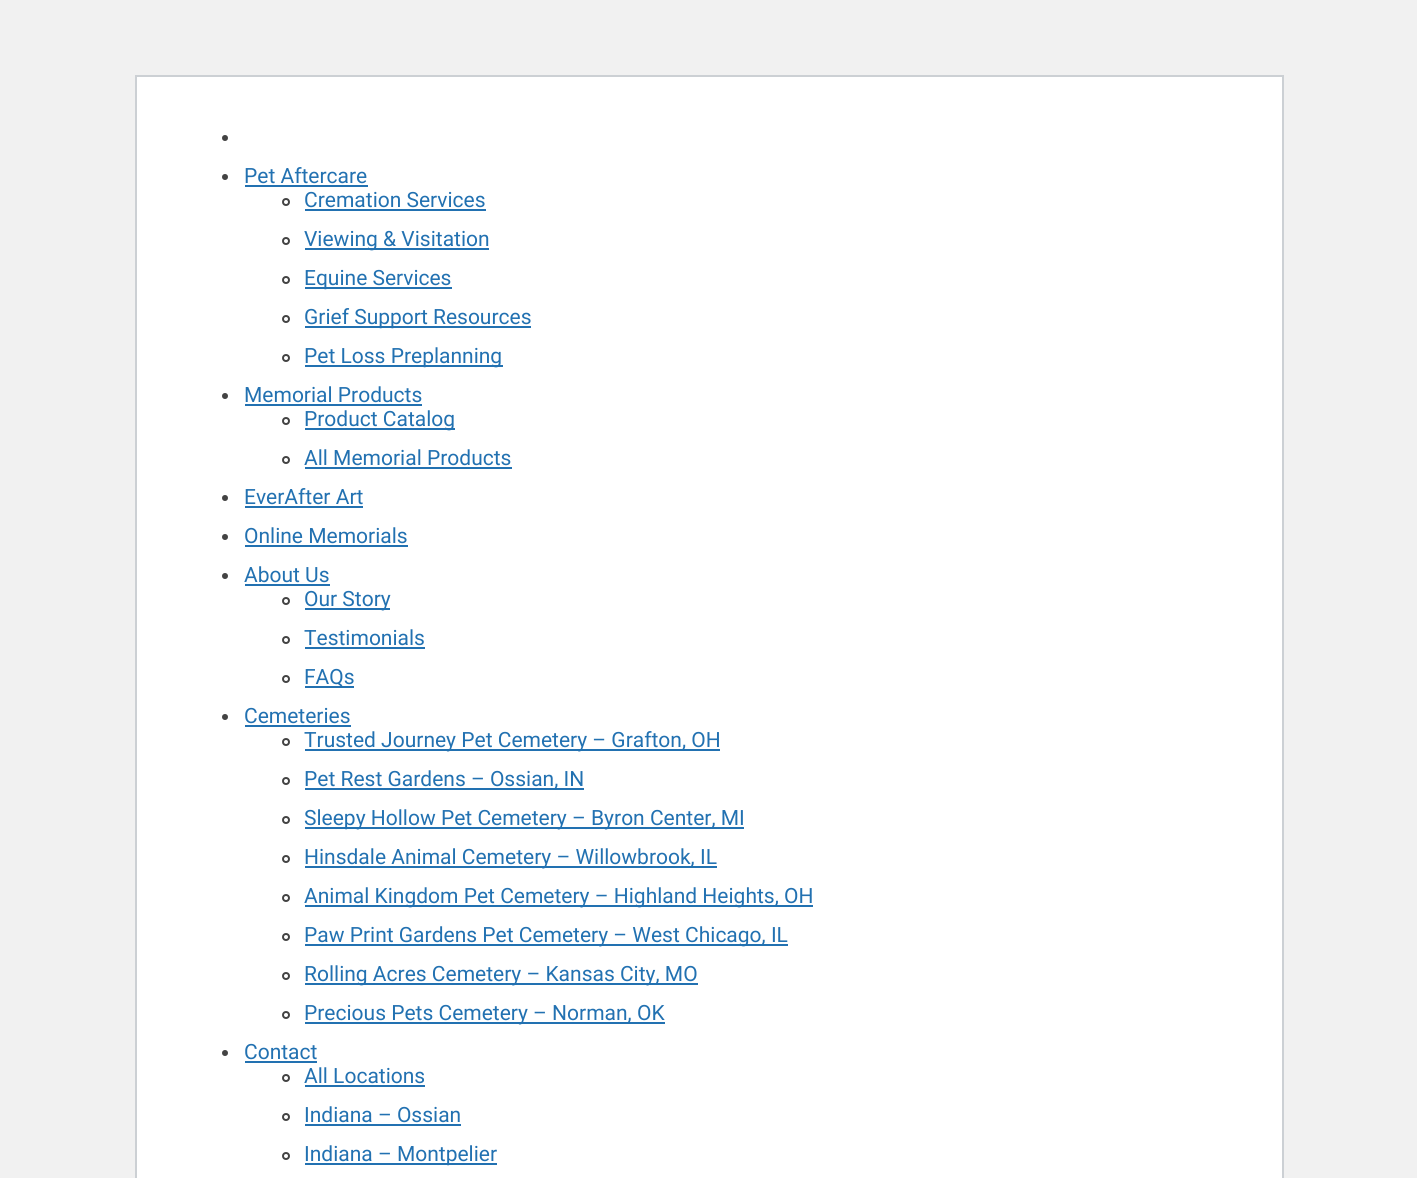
import math
import cairocffi as cairo

surface = cairo.ImageSurface(cairo.FORMAT_RGB24, 1417, 1178)
cr = cairo.Context(surface)
options = cairo.FontOptions()
options.set_hint_metrics(cairo.HINT_METRICS_OFF)
options.set_hint_style(cairo.HINT_STYLE_NONE)
cr.set_font_options(options)
cr.set_miter_limit(4)


def use_color(code):
    cr.set_source_rgb(*(v / 255 for v in bytes.fromhex(code[-6:])))


use_color("#f1f1f1")
cr.paint()
use_color("#ffffff")
cr.rectangle(136, 76, 1147, 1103)
cr.fill_preserve()
use_color("#ccd0d4")
cr.stroke()
use_color("#434343")
cr.arc(225, 138, 3, 0, 2 * math.pi)
cr.fill()
cr.arc(225, 177, 3, 0, 2 * math.pi)
cr.fill()
cr.select_font_face("Roboto")
cr.set_font_size(21)
use_color("#2271b1")
cr.move_to(244, 183)
cr.show_text("Pet Aftercare")
cr.rectangle(245, 185, 123, 2)
cr.fill()
cr.arc(286, 202, 3, 0, 2 * math.pi)
use_color("#434343")
cr.stroke()
use_color("#2271b1")
cr.move_to(304, 207)
cr.show_text("Cremation Services")
cr.rectangle(305, 209, 181, 2)
cr.fill()
cr.arc(286, 241, 3, 0, 2 * math.pi)
use_color("#434343")
cr.stroke()
use_color("#2271b1")
cr.rectangle(305, 248, 184, 2)
cr.fill()
cr.move_to(304, 246)
cr.show_text("Viewing & Visitation")
cr.new_path()
cr.arc(286, 280, 3, 0, 2 * math.pi)
use_color("#434343")
cr.stroke()
use_color("#2271b1")
cr.rectangle(305, 287, 147, 2)
cr.fill()
cr.move_to(304, 285)
cr.show_text("Equine Services")
cr.new_path()
cr.arc(286, 319, 3, 0, 2 * math.pi)
use_color("#434343")
cr.stroke()
use_color("#2271b1")
cr.rectangle(305, 326, 226, 2)
cr.fill()
cr.move_to(304, 324)
cr.show_text("Grief Support Resources")
cr.new_path()
cr.arc(286, 358, 3, 0, 2 * math.pi)
use_color("#434343")
cr.stroke()
use_color("#2271b1")
cr.rectangle(305, 365, 198, 2)
cr.fill()
cr.move_to(304, 363)
cr.show_text("Pet Loss Preplanning")
use_color("#434343")
cr.new_path()
cr.arc(225, 396, 3, 0, 2 * math.pi)
cr.fill()
use_color("#2271b1")
cr.move_to(244, 402)
cr.show_text("Memorial Products")
cr.rectangle(245, 404, 177, 2)
cr.fill()
cr.arc(286, 421, 3, 0, 2 * math.pi)
use_color("#434343")
cr.stroke()
use_color("#2271b1")
cr.rectangle(305, 428, 150, 2)
cr.fill()
cr.move_to(304, 426)
cr.show_text("Product Catalog")
cr.new_path()
cr.arc(286, 460, 3, 0, 2 * math.pi)
use_color("#434343")
cr.stroke()
use_color("#2271b1")
cr.move_to(304, 465)
cr.show_text("All Memorial Products")
cr.rectangle(305, 467, 207, 2)
cr.fill()
use_color("#434343")
cr.arc(225, 498, 3, 0, 2 * math.pi)
cr.fill()
use_color("#2271b1")
cr.move_to(244, 504)
cr.show_text("EverAfter Art")
cr.rectangle(245, 506, 118, 2)
cr.fill()
use_color("#434343")
cr.arc(225, 537, 3, 0, 2 * math.pi)
cr.fill()
use_color("#2271b1")
cr.move_to(244, 543)
cr.show_text("Online Memorials")
cr.rectangle(245, 545, 163, 2)
cr.fill()
use_color("#434343")
cr.arc(225, 576, 3, 0, 2 * math.pi)
cr.fill()
use_color("#2271b1")
cr.move_to(244, 582)
cr.show_text("About Us")
cr.rectangle(245, 584, 85, 2)
cr.fill()
cr.arc(286, 601, 3, 0, 2 * math.pi)
use_color("#434343")
cr.stroke()
use_color("#2271b1")
cr.rectangle(305, 608, 85, 2)
cr.fill()
cr.move_to(304, 606)
cr.show_text("Our Story")
cr.new_path()
cr.arc(286, 640, 3, 0, 2 * math.pi)
use_color("#434343")
cr.stroke()
use_color("#2271b1")
cr.move_to(304, 645)
cr.show_text("Testimonials")
cr.rectangle(305, 647, 120, 2)
cr.fill()
cr.arc(286, 679, 3, 0, 2 * math.pi)
use_color("#434343")
cr.stroke()
use_color("#2271b1")
cr.rectangle(305, 686, 49, 2)
cr.fill()
cr.move_to(304, 684)
cr.show_text("FAQs")
use_color("#434343")
cr.new_path()
cr.arc(225, 717, 3, 0, 2 * math.pi)
cr.fill()
use_color("#2271b1")
cr.move_to(244, 723)
cr.show_text("Cemeteries")
cr.rectangle(245, 725, 106, 2)
cr.fill()
cr.arc(286, 742, 3, 0, 2 * math.pi)
use_color("#434343")
cr.stroke()
use_color("#2271b1")
cr.rectangle(305, 749, 415, 2)
cr.fill()
cr.move_to(304, 747)
cr.show_text("Trusted Journey Pet Cemetery – Grafton, OH")
cr.new_path()
cr.arc(286, 781, 3, 0, 2 * math.pi)
use_color("#434343")
cr.stroke()
use_color("#2271b1")
cr.rectangle(305, 788, 279, 2)
cr.fill()
cr.move_to(304, 786)
cr.show_text("Pet Rest Gardens – Ossian, IN")
cr.new_path()
cr.arc(286, 820, 3, 0, 2 * math.pi)
use_color("#434343")
cr.stroke()
use_color("#2271b1")
cr.rectangle(305, 827, 439, 2)
cr.fill()
cr.move_to(304, 825)
cr.show_text("Sleepy Hollow Pet Cemetery – Byron Center, MI")
cr.new_path()
cr.arc(286, 859, 3, 0, 2 * math.pi)
use_color("#434343")
cr.stroke()
use_color("#2271b1")
cr.rectangle(305, 866, 412, 2)
cr.fill()
cr.move_to(304, 864)
cr.show_text("Hinsdale Animal Cemetery – Willowbrook, IL")
cr.new_path()
cr.arc(286, 898, 3, 0, 2 * math.pi)
use_color("#434343")
cr.stroke()
use_color("#2271b1")
cr.rectangle(305, 905, 508, 2)
cr.fill()
cr.move_to(304, 903)
cr.show_text("Animal Kingdom Pet Cemetery – Highland Heights, OH")
cr.new_path()
cr.arc(286, 937, 3, 0, 2 * math.pi)
use_color("#434343")
cr.stroke()
use_color("#2271b1")
cr.rectangle(305, 944, 483, 2)
cr.fill()
cr.move_to(304, 942)
cr.show_text("Paw Print Gardens Pet Cemetery – West Chicago, IL")
cr.new_path()
cr.arc(286, 976, 3, 0, 2 * math.pi)
use_color("#434343")
cr.stroke()
use_color("#2271b1")
cr.rectangle(305, 983, 393, 2)
cr.fill()
cr.move_to(304, 981)
cr.show_text("Rolling Acres Cemetery – Kansas City, MO")
cr.new_path()
cr.arc(286, 1015, 3, 0, 2 * math.pi)
use_color("#434343")
cr.stroke()
use_color("#2271b1")
cr.rectangle(305, 1022, 360, 2)
cr.fill()
cr.move_to(304, 1020)
cr.show_text("Precious Pets Cemetery – Norman, OK")
use_color("#434343")
cr.new_path()
cr.arc(225, 1053, 3, 0, 2 * math.pi)
cr.fill()
use_color("#2271b1")
cr.move_to(244, 1059)
cr.show_text("Contact")
cr.rectangle(245, 1061, 72, 2)
cr.fill()
cr.arc(286, 1078, 3, 0, 2 * math.pi)
use_color("#434343")
cr.stroke()
use_color("#2271b1")
cr.move_to(304, 1083)
cr.show_text("All Locations")
cr.rectangle(305, 1085, 120, 2)
cr.fill()
cr.arc(286, 1117, 3, 0, 2 * math.pi)
use_color("#434343")
cr.stroke()
use_color("#2271b1")
cr.move_to(304, 1122)
cr.show_text("Indiana – Ossian")
cr.rectangle(305, 1124, 156, 2)
cr.fill()
cr.arc(286, 1156, 3, 0, 2 * math.pi)
use_color("#434343")
cr.stroke()
use_color("#2271b1")
cr.rectangle(305, 1163, 192, 2)
cr.fill()
cr.move_to(304, 1161)
cr.show_text("Indiana – Montpelier")
surface.write_to_png("result.png")
